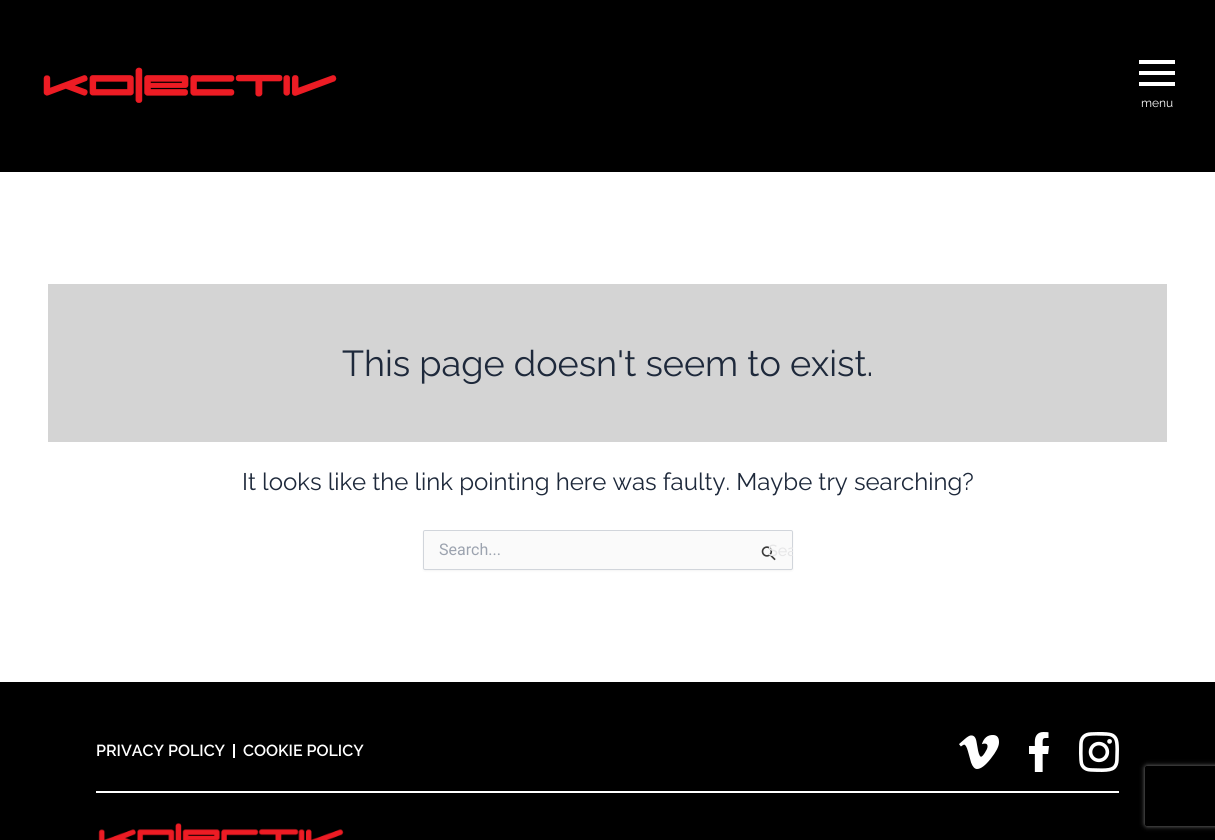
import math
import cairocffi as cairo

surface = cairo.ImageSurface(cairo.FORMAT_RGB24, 1215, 840)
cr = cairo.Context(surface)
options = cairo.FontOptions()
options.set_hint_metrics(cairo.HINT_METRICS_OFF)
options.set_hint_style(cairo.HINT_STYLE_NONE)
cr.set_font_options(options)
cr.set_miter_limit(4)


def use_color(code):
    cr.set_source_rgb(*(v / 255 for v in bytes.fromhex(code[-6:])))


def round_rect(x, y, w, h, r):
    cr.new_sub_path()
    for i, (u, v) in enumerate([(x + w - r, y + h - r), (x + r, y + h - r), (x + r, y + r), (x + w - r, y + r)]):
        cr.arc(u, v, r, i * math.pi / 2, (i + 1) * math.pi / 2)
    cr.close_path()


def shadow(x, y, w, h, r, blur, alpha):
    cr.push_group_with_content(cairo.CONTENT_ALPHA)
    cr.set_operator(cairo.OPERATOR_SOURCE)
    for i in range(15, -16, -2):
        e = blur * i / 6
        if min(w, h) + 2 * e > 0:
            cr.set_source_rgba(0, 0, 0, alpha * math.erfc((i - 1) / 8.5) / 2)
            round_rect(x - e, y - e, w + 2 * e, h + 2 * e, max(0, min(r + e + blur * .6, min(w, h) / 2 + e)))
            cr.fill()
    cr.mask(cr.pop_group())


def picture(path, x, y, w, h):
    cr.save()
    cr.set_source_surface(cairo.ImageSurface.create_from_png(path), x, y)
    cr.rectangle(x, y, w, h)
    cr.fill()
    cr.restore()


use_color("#ffffff")
cr.paint()
use_color("#000000")
cr.rectangle(0, 0, 1215, 172)
cr.fill()
picture("img1.png", 43, 67, 294, 36)
use_color("#ffffff")
cr.rectangle(1139, 60, 36, 4)
cr.fill()
cr.rectangle(1139, 71, 36, 4)
cr.fill()
cr.rectangle(1139, 82, 36, 4)
cr.fill()
cr.select_font_face("Raleway")
cr.set_font_size(12)
cr.move_to(1141, 107)
cr.show_text("menu")
use_color("#d4d4d4")
cr.rectangle(48, 284, 1119, 158)
cr.fill()
cr.set_font_size(36)
use_color("#1e293b")
cr.move_to(342, 376)
cr.show_text("This page doesn't seem to exist.")
cr.set_font_size(24)
cr.move_to(242, 490)
cr.show_text("It looks like the link pointing here was faulty. Maybe try searching?")
use_color("#000000")
shadow(423, 531, 370, 40, 2, 1, 0.05)
use_color("#fafafa")
round_rect(423.5, 530.5, 369, 39, 1.5)
cr.fill_preserve()
use_color("#d1d5db")
cr.set_line_width(1)
cr.stroke()
cr.select_font_face("Roboto")
cr.set_font_size(16)
use_color("#9ca3af")
cr.move_to(439, 555)
cr.show_text("Search...")
picture("img2.png", 761, 546, 15, 15)
cr.save()
round_rect(748, 530, 45, 42, 2)
cr.clip()
cr.select_font_face("Raleway Medium")
use_color("#e6e6e7")
cr.move_to(768, 556)
cr.show_text("Sea")
cr.restore()
use_color("#000000")
cr.rectangle(0, 682, 1215, 158)
cr.fill()
use_color("#ffffff")
cr.rectangle(96, 791, 1023, 2)
cr.fill()
cr.select_font_face("Raleway SemiBold")
cr.move_to(96, 756)
cr.show_text("PRIVACY POLICY")
cr.rectangle(233, 744, 2, 14)
cr.fill()
cr.move_to(243, 756)
cr.show_text("COOKIE POLICY")
picture("img3.png", 959, 735, 40, 34)
picture("img4.png", 1029, 732, 20, 40)
picture("img5.png", 1079, 732, 40, 40)
picture("img6.png", 98, 823, 246, 17)
cr.save()
cr.set_fill_rule(cairo.FILL_RULE_EVEN_ODD)
cr.new_path()
cr.move_to(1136, 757)
cr.line_to(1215, 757)
cr.line_to(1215, 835)
cr.line_to(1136, 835)
cr.close_path()
cr.move_to(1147, 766)
cr.line_to(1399, 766)
cr.curve_to(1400, 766, 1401, 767, 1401, 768)
cr.line_to(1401, 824)
cr.curve_to(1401, 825, 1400, 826, 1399, 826)
cr.line_to(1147, 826)
cr.curve_to(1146, 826, 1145, 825, 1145, 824)
cr.line_to(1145, 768)
cr.curve_to(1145, 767, 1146, 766, 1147, 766)
cr.close_path()
cr.clip()
use_color("#808080")
shadow(1145, 766, 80, 60, 2, 2.5, 1)
cr.restore()
surface.write_to_png("result.png")
